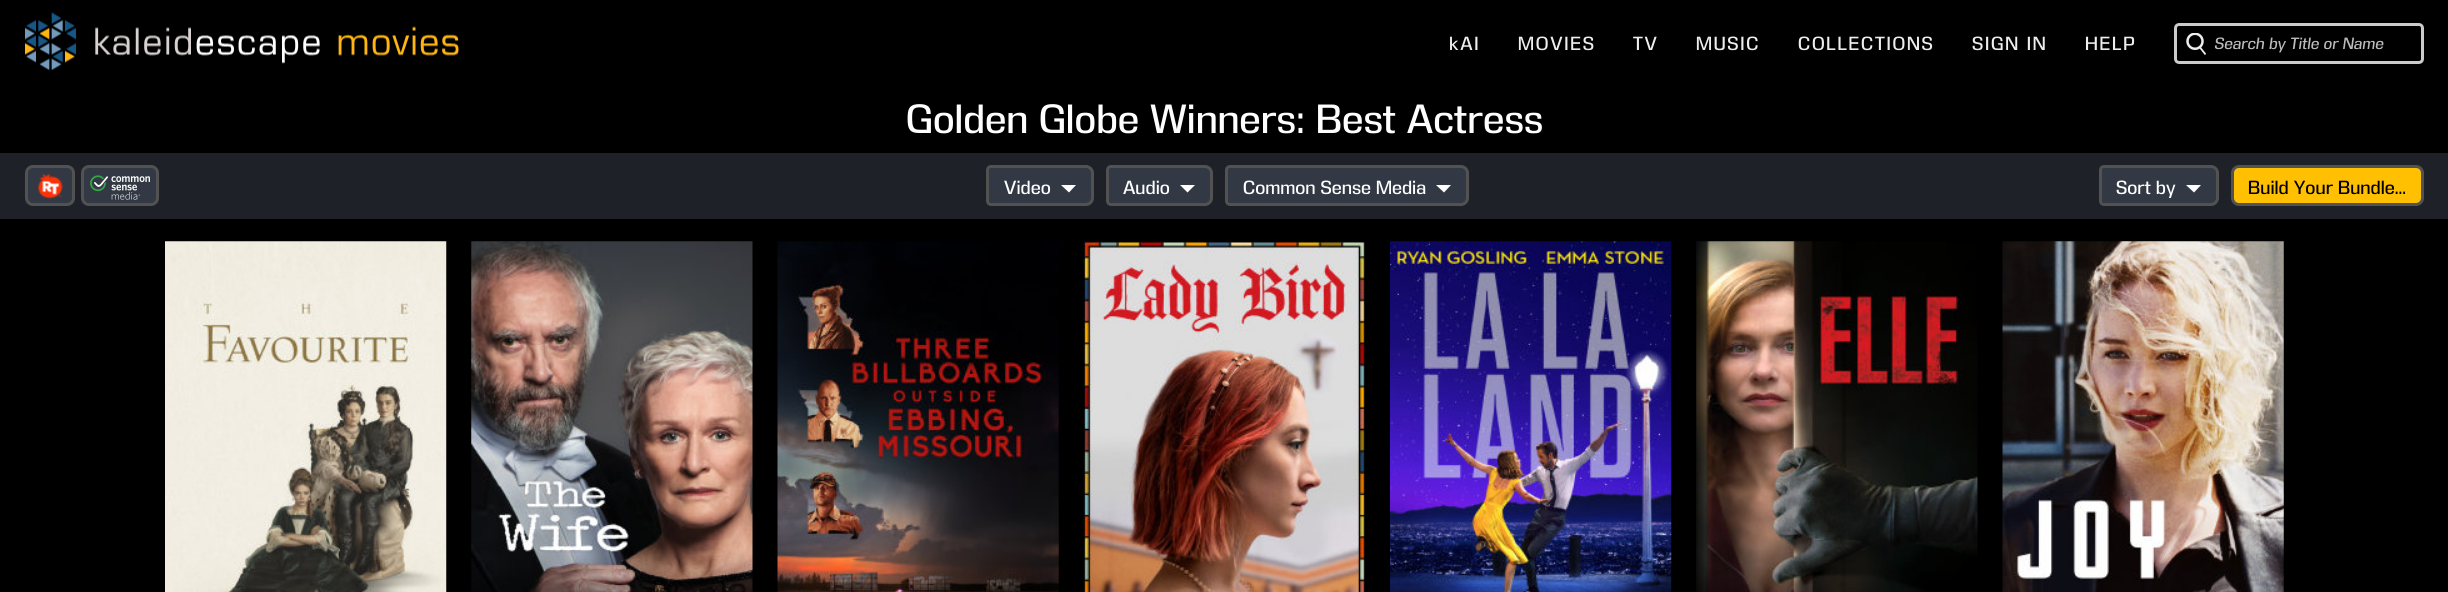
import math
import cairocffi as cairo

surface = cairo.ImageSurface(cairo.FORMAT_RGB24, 2448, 592)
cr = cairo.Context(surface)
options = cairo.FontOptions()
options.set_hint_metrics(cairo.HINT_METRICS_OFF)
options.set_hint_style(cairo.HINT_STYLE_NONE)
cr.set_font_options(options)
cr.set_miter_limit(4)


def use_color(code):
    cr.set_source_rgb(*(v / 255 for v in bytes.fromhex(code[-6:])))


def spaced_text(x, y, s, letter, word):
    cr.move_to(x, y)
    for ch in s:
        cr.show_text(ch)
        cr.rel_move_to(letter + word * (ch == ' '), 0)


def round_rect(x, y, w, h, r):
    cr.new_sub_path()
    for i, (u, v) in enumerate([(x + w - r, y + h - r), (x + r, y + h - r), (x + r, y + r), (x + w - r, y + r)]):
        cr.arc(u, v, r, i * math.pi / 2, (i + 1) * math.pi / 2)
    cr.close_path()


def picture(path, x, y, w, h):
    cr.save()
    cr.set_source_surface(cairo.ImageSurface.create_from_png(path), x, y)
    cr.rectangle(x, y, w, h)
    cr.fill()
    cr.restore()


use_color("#000000")
cr.paint()
picture("img1.png", 25, 12, 434, 59)
cr.select_font_face("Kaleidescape")
cr.set_font_size(17.5)
use_color("#eeeeee")
spaced_text(1449, 50, "kAI", 1.75, 0)
spaced_text(1518, 50, "MOVIES", 1.75, 0)
spaced_text(1633, 50, "TV", 1.75, 0)
spaced_text(1696, 50, "MUSIC", 1.75, 0)
spaced_text(1798, 50, "COLLECTIONS", 1.75, 0)
spaced_text(1972, 50, "SIGN IN", 1.75, 0)
spaced_text(2085, 50, "HELP", 1.75, 0)
picture("img2.png", 2186, 33, 20, 22)
round_rect(2175.5, 24.5, 247, 38, 3.5)
use_color("#cbcbcb")
cr.set_line_width(3)
cr.stroke()
cr.select_font_face("Kaleidescape", cairo.FONT_SLANT_ITALIC)
cr.set_font_size(15)
use_color("#bbbbbb")
cr.move_to(2214, 49)
cr.show_text("Search by Title or Name")
cr.select_font_face("Kaleidescape")
cr.set_font_size(37.5)
use_color("#ffffff")
cr.move_to(906, 133)
cr.show_text("Golden Globe Winners: Best Actress")
use_color("#1e2127")
cr.rectangle(0, 153, 2448, 66)
cr.fill()
use_color("#323944")
round_rect(26.5, 166.5, 47, 38, 6.5)
cr.fill_preserve()
use_color("#525252")
cr.stroke()
picture("img3.png", 38, 174, 25, 25)
use_color("#323944")
round_rect(82.5, 166.5, 75, 38, 6.5)
cr.fill_preserve()
use_color("#525252")
cr.stroke()
picture("img4.png", 90, 175, 60, 25)
use_color("#323944")
cr.new_path()
cr.move_to(991, 166.5)
cr.line_to(1086, 166.5)
cr.curve_to(1089.5, 166.5, 1092.5, 169.5, 1092.5, 173)
cr.line_to(1092.5, 198)
cr.curve_to(1092.5, 201.5, 1089.5, 204.5, 1086, 204.5)
cr.line_to(991, 204.5)
cr.curve_to(989, 204.5, 987.5, 203, 987.5, 201)
cr.line_to(987.5, 170)
cr.curve_to(987.5, 168, 989, 166.5, 991, 166.5)
cr.close_path()
cr.fill_preserve()
use_color("#525252")
cr.stroke()
cr.set_font_size(17.5)
use_color("#ffffff")
cr.move_to(1004, 194)
cr.show_text("Video")
cr.new_path()
cr.move_to(1061, 185)
cr.line_to(1076, 185)
cr.line_to(1069, 192.5)
cr.close_path()
cr.fill()
use_color("#323944")
cr.new_path()
cr.move_to(1111, 166.5)
cr.line_to(1205, 166.5)
cr.curve_to(1208.5, 166.5, 1211.5, 169.5, 1211.5, 173)
cr.line_to(1211.5, 198)
cr.curve_to(1211.5, 201.5, 1208.5, 204.5, 1205, 204.5)
cr.line_to(1111, 204.5)
cr.curve_to(1109, 204.5, 1107.5, 203, 1107.5, 201)
cr.line_to(1107.5, 170)
cr.curve_to(1107.5, 168, 1109, 166.5, 1111, 166.5)
cr.close_path()
cr.fill_preserve()
use_color("#525252")
cr.stroke()
use_color("#ffffff")
cr.move_to(1123, 194)
cr.show_text("Audio")
cr.new_path()
cr.move_to(1180, 185)
cr.line_to(1195, 185)
cr.line_to(1187.5, 192.5)
cr.close_path()
cr.fill()
use_color("#323944")
cr.new_path()
cr.move_to(1230, 166.5)
cr.line_to(1461, 166.5)
cr.curve_to(1464.5, 166.5, 1467.5, 169.5, 1467.5, 173)
cr.line_to(1467.5, 198)
cr.curve_to(1467.5, 201.5, 1464.5, 204.5, 1461, 204.5)
cr.line_to(1230, 204.5)
cr.curve_to(1228, 204.5, 1226.5, 203, 1226.5, 201)
cr.line_to(1226.5, 170)
cr.curve_to(1226.5, 168, 1228, 166.5, 1230, 166.5)
cr.close_path()
cr.fill_preserve()
use_color("#525252")
cr.stroke()
use_color("#ffffff")
cr.move_to(1243, 194)
cr.show_text("Common Sense Media")
cr.new_path()
cr.move_to(1436, 185)
cr.line_to(1451, 185)
cr.line_to(1444, 192.5)
cr.close_path()
cr.fill()
use_color("#323944")
cr.new_path()
cr.move_to(2104, 166.5)
cr.line_to(2211, 166.5)
cr.curve_to(2214.5, 166.5, 2217.5, 169.5, 2217.5, 173)
cr.line_to(2217.5, 198)
cr.curve_to(2217.5, 201.5, 2214.5, 204.5, 2211, 204.5)
cr.line_to(2104, 204.5)
cr.curve_to(2102, 204.5, 2100.5, 203, 2100.5, 201)
cr.line_to(2100.5, 170)
cr.curve_to(2100.5, 168, 2102, 166.5, 2104, 166.5)
cr.close_path()
cr.fill_preserve()
use_color("#525252")
cr.stroke()
use_color("#ffffff")
cr.move_to(2116, 194)
cr.show_text("Sort by")
cr.new_path()
cr.move_to(2186, 185)
cr.line_to(2201, 185)
cr.line_to(2194, 192.5)
cr.close_path()
cr.fill()
use_color("#ffc002")
round_rect(2232.5, 166.5, 190, 38, 6.5)
cr.fill_preserve()
use_color("#525252")
cr.stroke()
use_color("#000000")
cr.move_to(2248, 194)
cr.show_text("Build Your Bundle...")
picture("img5.png", 165, 241, 282, 351)
picture("img6.png", 471, 241, 282, 351)
picture("img7.png", 777, 241, 282, 351)
picture("img8.png", 1083, 241, 282, 351)
picture("img9.png", 1390, 241, 282, 351)
picture("img10.png", 1696, 241, 282, 351)
picture("img11.png", 2002, 241, 282, 351)
surface.write_to_png("result.png")
